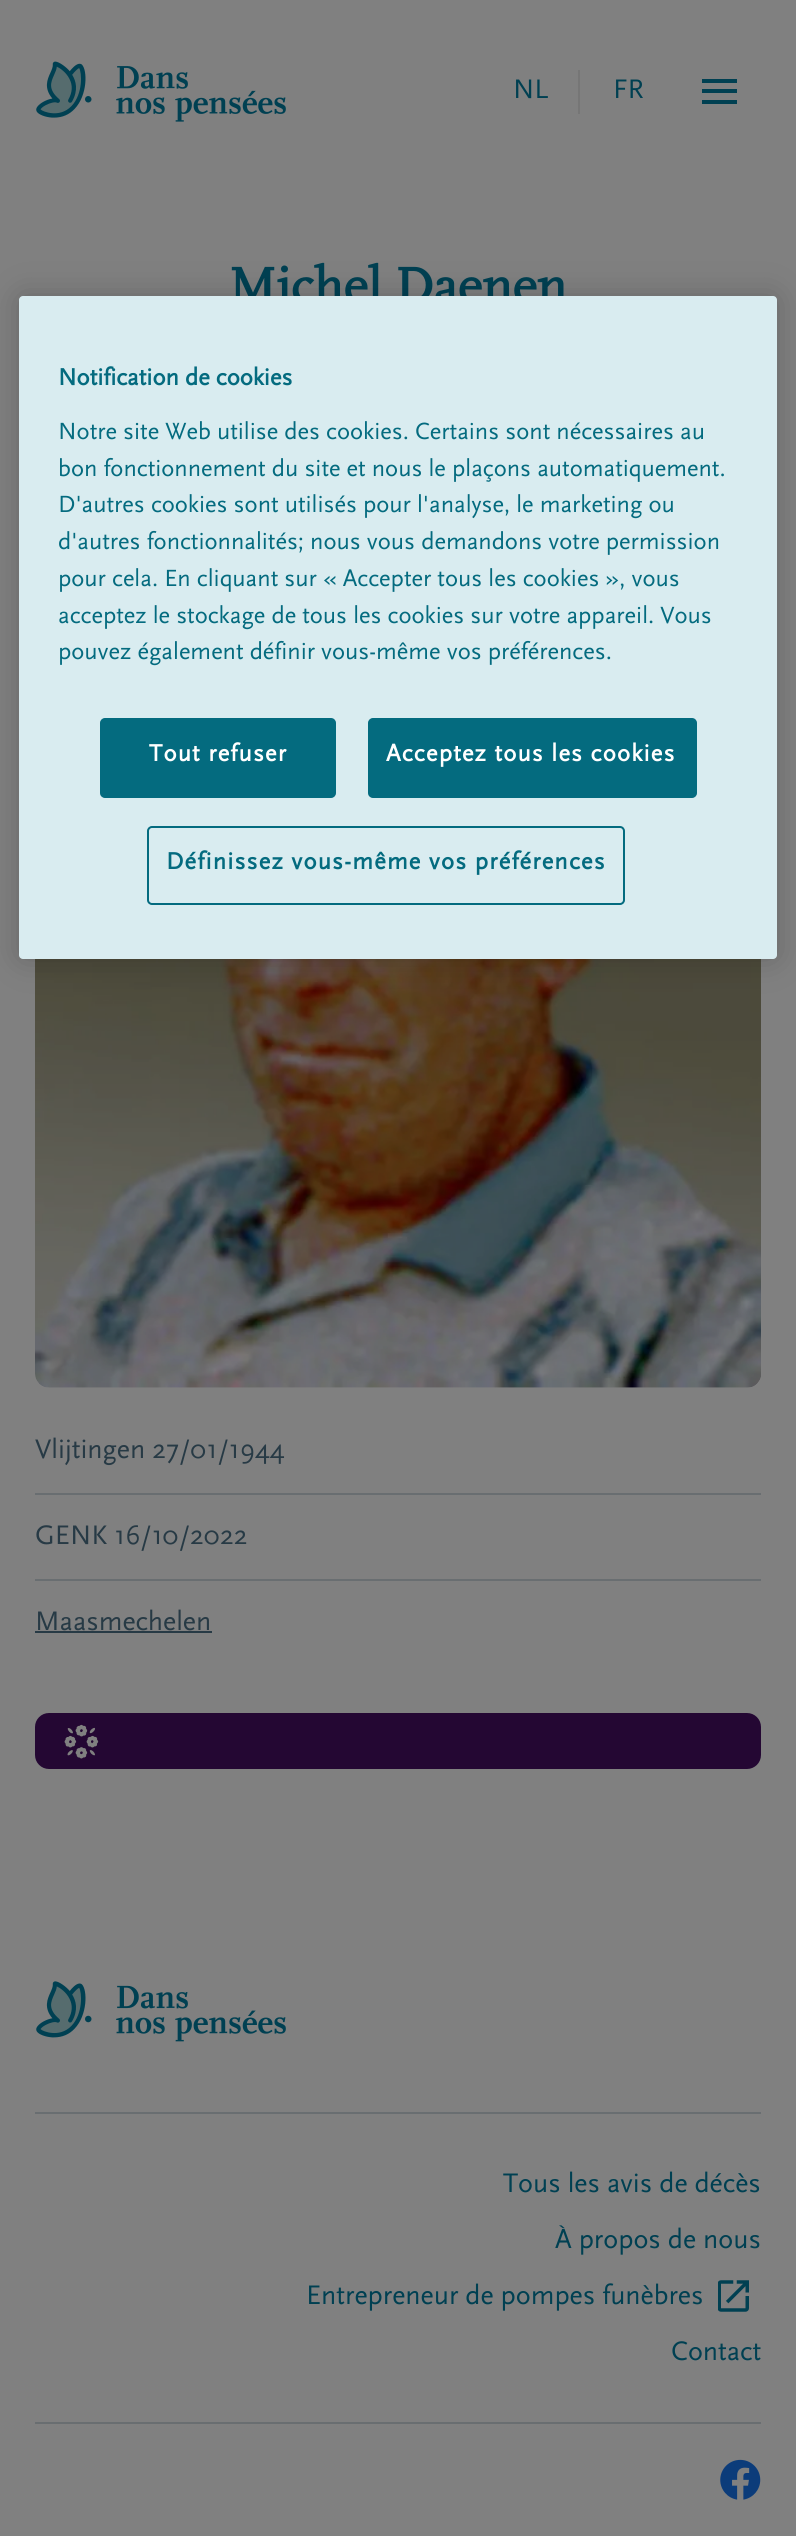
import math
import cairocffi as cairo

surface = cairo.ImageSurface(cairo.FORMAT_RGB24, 796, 2536)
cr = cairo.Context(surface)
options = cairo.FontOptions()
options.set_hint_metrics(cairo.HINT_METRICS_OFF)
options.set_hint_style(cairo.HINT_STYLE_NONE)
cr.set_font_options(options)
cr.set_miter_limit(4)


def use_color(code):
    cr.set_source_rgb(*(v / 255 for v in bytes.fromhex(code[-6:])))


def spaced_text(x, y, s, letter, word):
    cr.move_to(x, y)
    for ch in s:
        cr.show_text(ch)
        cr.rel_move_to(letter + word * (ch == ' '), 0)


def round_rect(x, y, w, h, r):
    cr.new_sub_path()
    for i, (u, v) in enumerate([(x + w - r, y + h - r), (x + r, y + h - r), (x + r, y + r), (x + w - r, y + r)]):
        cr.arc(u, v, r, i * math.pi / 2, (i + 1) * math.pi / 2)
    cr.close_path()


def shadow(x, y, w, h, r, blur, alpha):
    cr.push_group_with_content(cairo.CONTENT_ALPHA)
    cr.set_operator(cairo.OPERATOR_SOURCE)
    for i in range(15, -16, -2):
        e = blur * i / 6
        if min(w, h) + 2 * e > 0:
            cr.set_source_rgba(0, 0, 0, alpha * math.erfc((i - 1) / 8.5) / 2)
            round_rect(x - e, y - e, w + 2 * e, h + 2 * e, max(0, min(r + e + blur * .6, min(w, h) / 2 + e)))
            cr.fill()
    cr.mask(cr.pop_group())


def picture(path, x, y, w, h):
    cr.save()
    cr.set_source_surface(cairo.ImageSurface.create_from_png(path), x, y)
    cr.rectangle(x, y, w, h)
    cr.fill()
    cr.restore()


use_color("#808080")
cr.paint()
picture("img1.png", 36, 61, 250, 61)
cr.select_font_face("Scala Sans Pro")
cr.set_font_size(28)
use_color("#004052")
cr.move_to(513, 98)
cr.show_text("NL")
use_color("#767676")
cr.rectangle(578, 70, 2, 44)
cr.fill()
use_color("#004052")
cr.move_to(613, 98)
cr.show_text("FR")
cr.rectangle(702, 79, 35, 4)
cr.fill()
cr.rectangle(702, 89, 35, 4)
cr.fill()
cr.rectangle(702, 100, 35, 4)
cr.fill()
cr.select_font_face("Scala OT", cairo.FONT_SLANT_NORMAL, cairo.FONT_WEIGHT_BOLD)
cr.set_font_size(52.5)
cr.move_to(229, 303)
cr.show_text("Michel Daenen")
picture("img2.png", 35, 959, 726, 429)
use_color("#696e71")
cr.rectangle(35, 1493, 726, 2)
cr.fill()
cr.select_font_face("Scala Sans Pro")
cr.set_font_size(28)
use_color("#273a45")
cr.move_to(35, 1458)
cr.show_text("Vlijtingen 27/01/1944")
use_color("#696e71")
cr.rectangle(35, 1579, 726, 2)
cr.fill()
use_color("#273a45")
cr.move_to(35, 1544)
cr.show_text("GENK 16/10/2022")
cr.move_to(35, 1630)
cr.show_text("Maasmechelen")
cr.rectangle(35, 1631, 177, 2)
cr.fill()
use_color("#240733")
round_rect(35, 1713, 726, 56, 14)
cr.fill()
picture("img3.png", 64, 1724, 35, 35)
use_color("#696e71")
cr.rectangle(35, 2112, 726, 2)
cr.fill()
picture("img4.png", 36, 1981, 250, 61)
use_color("#004052")
cr.move_to(503, 2192)
cr.show_text("Tous les avis de décès")
cr.move_to(555, 2248)
cr.show_text("À propos de nous")
cr.move_to(306, 2304)
cr.show_text("Entrepreneur de pompes funèbres")
picture("img5.png", 718, 2280, 31, 32)
cr.move_to(671, 2360)
cr.show_text("Contact")
use_color("#696e71")
cr.rectangle(35, 2422, 726, 2)
cr.fill()
picture("img6.png", 720, 2459, 41, 41)
use_color("#000000")
shadow(19, 296, 758, 663, 4, 16, 0.2)
use_color("#d9ecf0")
round_rect(19, 296, 758, 663, 4)
cr.fill()
cr.select_font_face("Scala Sans Pro", cairo.FONT_SLANT_NORMAL, cairo.FONT_WEIGHT_BOLD)
cr.set_font_size(24.5)
use_color("#046b7f")
cr.move_to(58, 385)
cr.show_text("Notification de cookies")
cr.select_font_face("Scala Sans Pro")
cr.move_to(58, 439)
cr.show_text("Notre site Web utilise des cookies. Certains sont nécessaires au")
cr.move_to(58, 476)
cr.show_text("bon fonctionnement du site et nous le plaçons automatiquement.")
cr.move_to(58, 512)
cr.show_text("D'autres cookies sont utilisés pour l'analyse, le marketing ou")
cr.move_to(58, 549)
cr.show_text("d'autres fonctionnalités; nous vous demandons votre permission")
cr.move_to(58, 586)
cr.show_text("pour cela. En cliquant sur « Accepter tous les cookies », vous")
cr.move_to(58, 623)
cr.show_text("acceptez le stockage de tous les cookies sur votre appareil. Vous")
cr.move_to(58, 659)
cr.show_text("pouvez également définir vous-même vos préférences.")
round_rect(101, 719, 234, 78, 4)
cr.fill_preserve()
cr.stroke()
cr.select_font_face("Scala Sans Pro", cairo.FONT_SLANT_NORMAL, cairo.FONT_WEIGHT_BOLD)
use_color("#ffffff")
spaced_text(149, 761, "Tout refuser", 1.2, 0)
use_color("#046b7f")
round_rect(369, 719, 327, 78, 4)
cr.fill_preserve()
cr.stroke()
use_color("#ffffff")
spaced_text(386, 761, "Acceptez tous les cookies", 1.2, 0)
round_rect(148, 827, 476, 77, 4)
use_color("#046b7f")
cr.stroke()
spaced_text(166, 869, "Définissez vous-même vos préférences", 1.2, 0)
surface.write_to_png("result.png")
